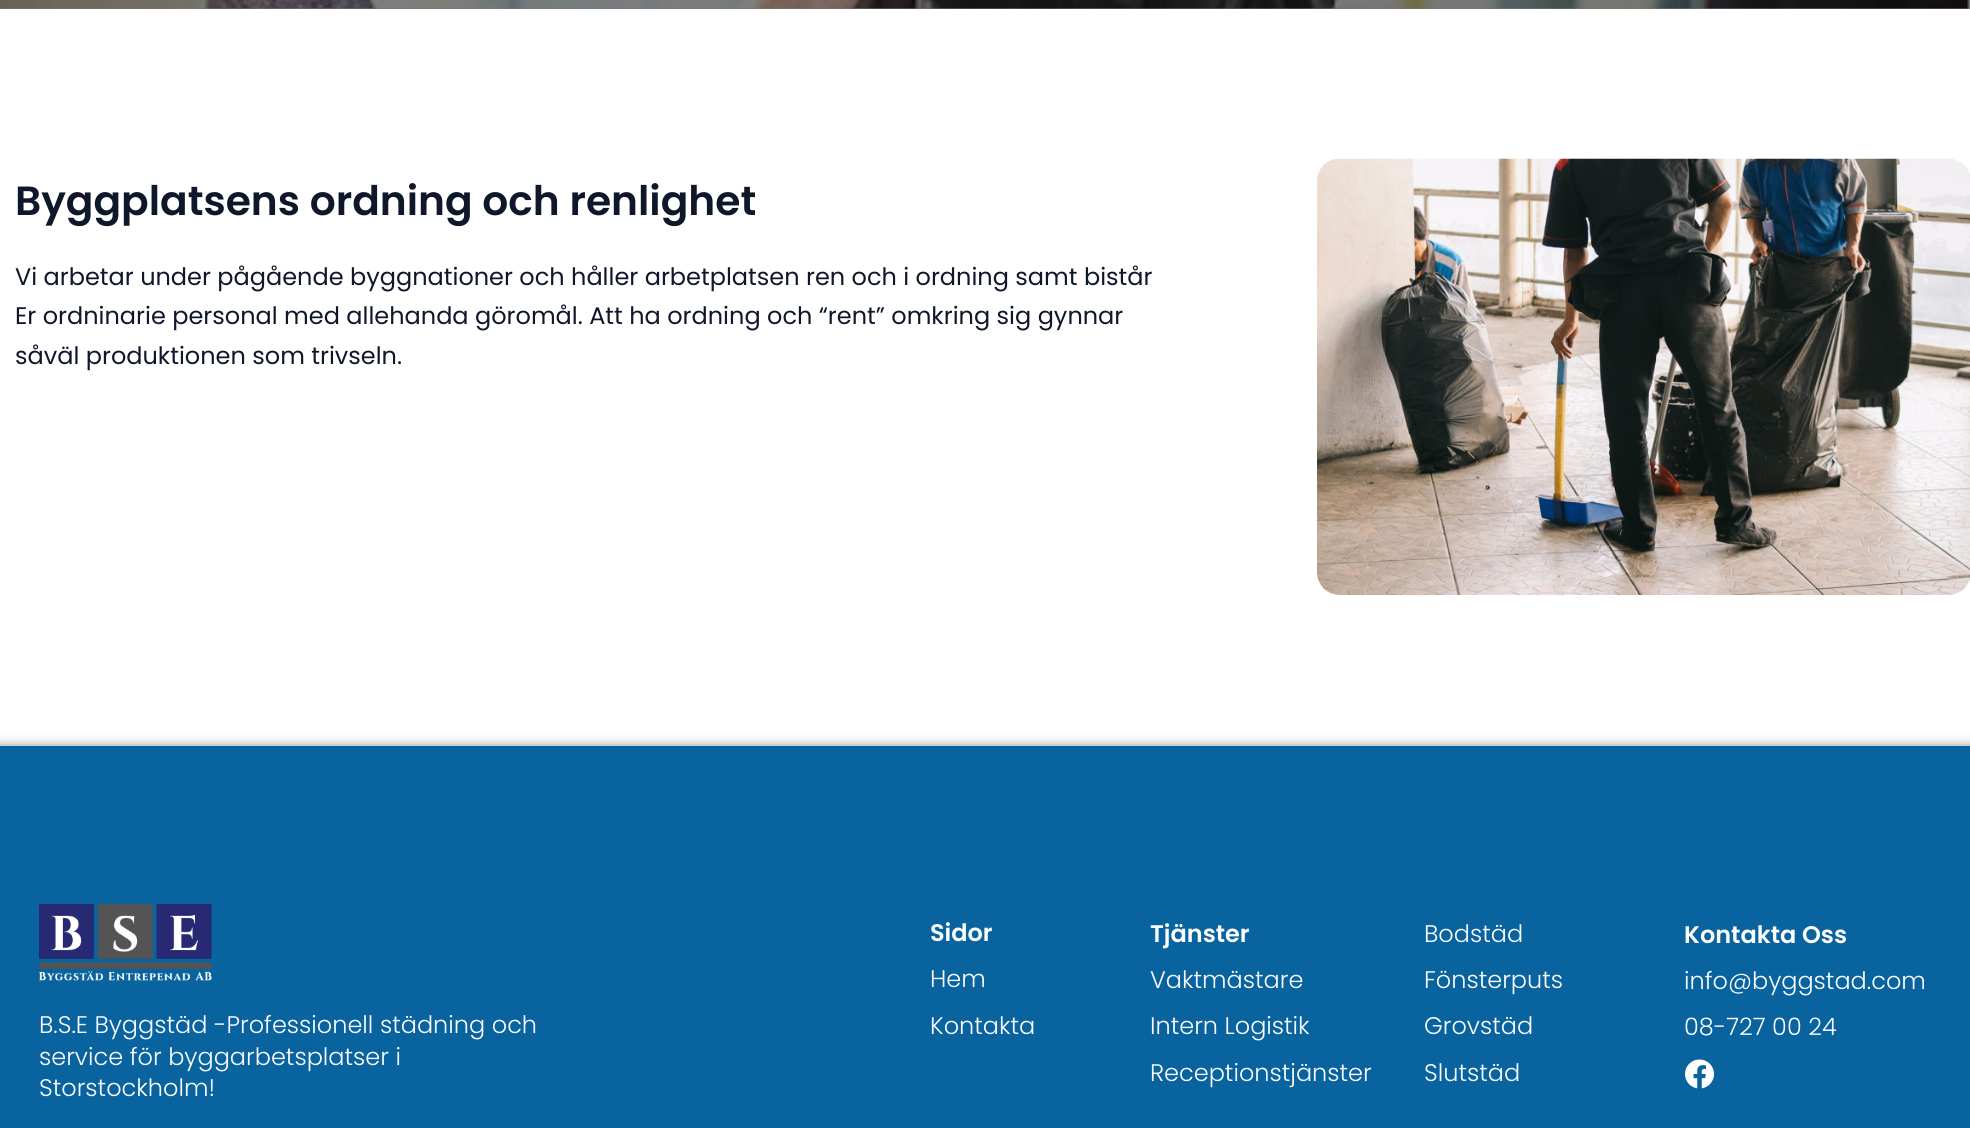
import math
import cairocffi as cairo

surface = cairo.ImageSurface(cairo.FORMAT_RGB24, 1970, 1128)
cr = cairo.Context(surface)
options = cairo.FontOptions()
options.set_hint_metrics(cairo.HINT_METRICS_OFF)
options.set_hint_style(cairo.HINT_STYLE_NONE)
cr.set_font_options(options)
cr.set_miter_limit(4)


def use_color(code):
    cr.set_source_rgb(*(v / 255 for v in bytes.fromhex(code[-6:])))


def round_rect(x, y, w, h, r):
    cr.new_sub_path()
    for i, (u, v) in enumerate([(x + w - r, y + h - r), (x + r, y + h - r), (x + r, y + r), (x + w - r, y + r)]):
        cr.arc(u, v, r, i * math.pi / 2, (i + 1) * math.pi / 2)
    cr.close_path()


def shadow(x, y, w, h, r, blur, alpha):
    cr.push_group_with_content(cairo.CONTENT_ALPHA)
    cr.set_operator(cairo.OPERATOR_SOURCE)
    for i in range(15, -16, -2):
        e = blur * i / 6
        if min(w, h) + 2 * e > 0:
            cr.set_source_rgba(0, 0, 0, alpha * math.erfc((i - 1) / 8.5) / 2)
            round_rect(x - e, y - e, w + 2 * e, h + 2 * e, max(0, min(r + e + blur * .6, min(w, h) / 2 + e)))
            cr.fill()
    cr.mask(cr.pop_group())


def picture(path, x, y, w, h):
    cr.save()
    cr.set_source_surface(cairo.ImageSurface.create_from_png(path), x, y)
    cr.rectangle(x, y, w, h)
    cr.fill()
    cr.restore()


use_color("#7b7b7b")
cr.paint()
picture("img1.png", 0, 0, 1970, 9)
use_color("#ffffff")
cr.rectangle(0, 9, 1970, 737)
cr.fill()
cr.select_font_face("Poppins SemiBold")
cr.set_font_size(40.75)
use_color("#0f172a")
cr.move_to(15, 215)
cr.show_text("Byggplatsens ordning och renlighet")
cr.select_font_face("Poppins")
cr.set_font_size(24)
cr.move_to(15, 285)
cr.show_text("Vi arbetar under pågående byggnationer och håller arbetplatsen ren och i ordning samt bistår")
cr.move_to(15, 324)
cr.show_text("Er ordninarie personal med allehanda göromål. Att ha ordning och “rent” omkring sig gynnar")
cr.move_to(15, 364)
cr.show_text("såväl produktionen som trivseln.")
picture("img2.png", 1317, 158, 653, 437)
use_color("#000000")
shadow(-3, 747, 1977, 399, 0, 6, 0.5)
use_color("#09639f")
cr.rectangle(0, 746, 1970, 382)
cr.fill()
cr.select_font_face("Poppins SemiBold")
use_color("#ffffff")
cr.move_to(930, 941)
cr.show_text("Sidor")
cr.select_font_face("Poppins Light")
cr.move_to(930, 987)
cr.show_text("Hem")
cr.move_to(930, 1034)
cr.show_text("Kontakta")
cr.select_font_face("Poppins SemiBold")
cr.move_to(1150, 942)
cr.show_text("Tjänster")
cr.select_font_face("Poppins Light")
cr.move_to(1150, 988)
cr.show_text("Vaktmästare")
cr.move_to(1150, 1034)
cr.show_text("Intern Logistik")
cr.move_to(1150, 1081)
cr.show_text("Receptionstjänster")
cr.move_to(1424, 942)
cr.show_text("Bodstäd")
cr.move_to(1424, 988)
cr.show_text("Fönsterputs")
cr.move_to(1424, 1034)
cr.show_text("Grovstäd")
cr.move_to(1424, 1081)
cr.show_text("Slutstäd")
cr.select_font_face("Poppins SemiBold")
cr.move_to(1684, 943)
cr.show_text("Kontakta Oss")
cr.select_font_face("Poppins Light")
cr.move_to(1684, 989)
cr.show_text("info@byggstad.com")
cr.move_to(1684, 1035)
cr.show_text("08-727 00 24")
picture("img3.png", 1685, 1059, 29, 30)
picture("img4.png", 39, 904, 173, 77)
cr.move_to(39, 1033)
cr.show_text("B.S.E Byggstäd -Professionell städning och")
cr.move_to(39, 1065)
cr.show_text("service för byggarbetsplatser i")
cr.move_to(39, 1096)
cr.show_text("Storstockholm!")
surface.write_to_png("result.png")
